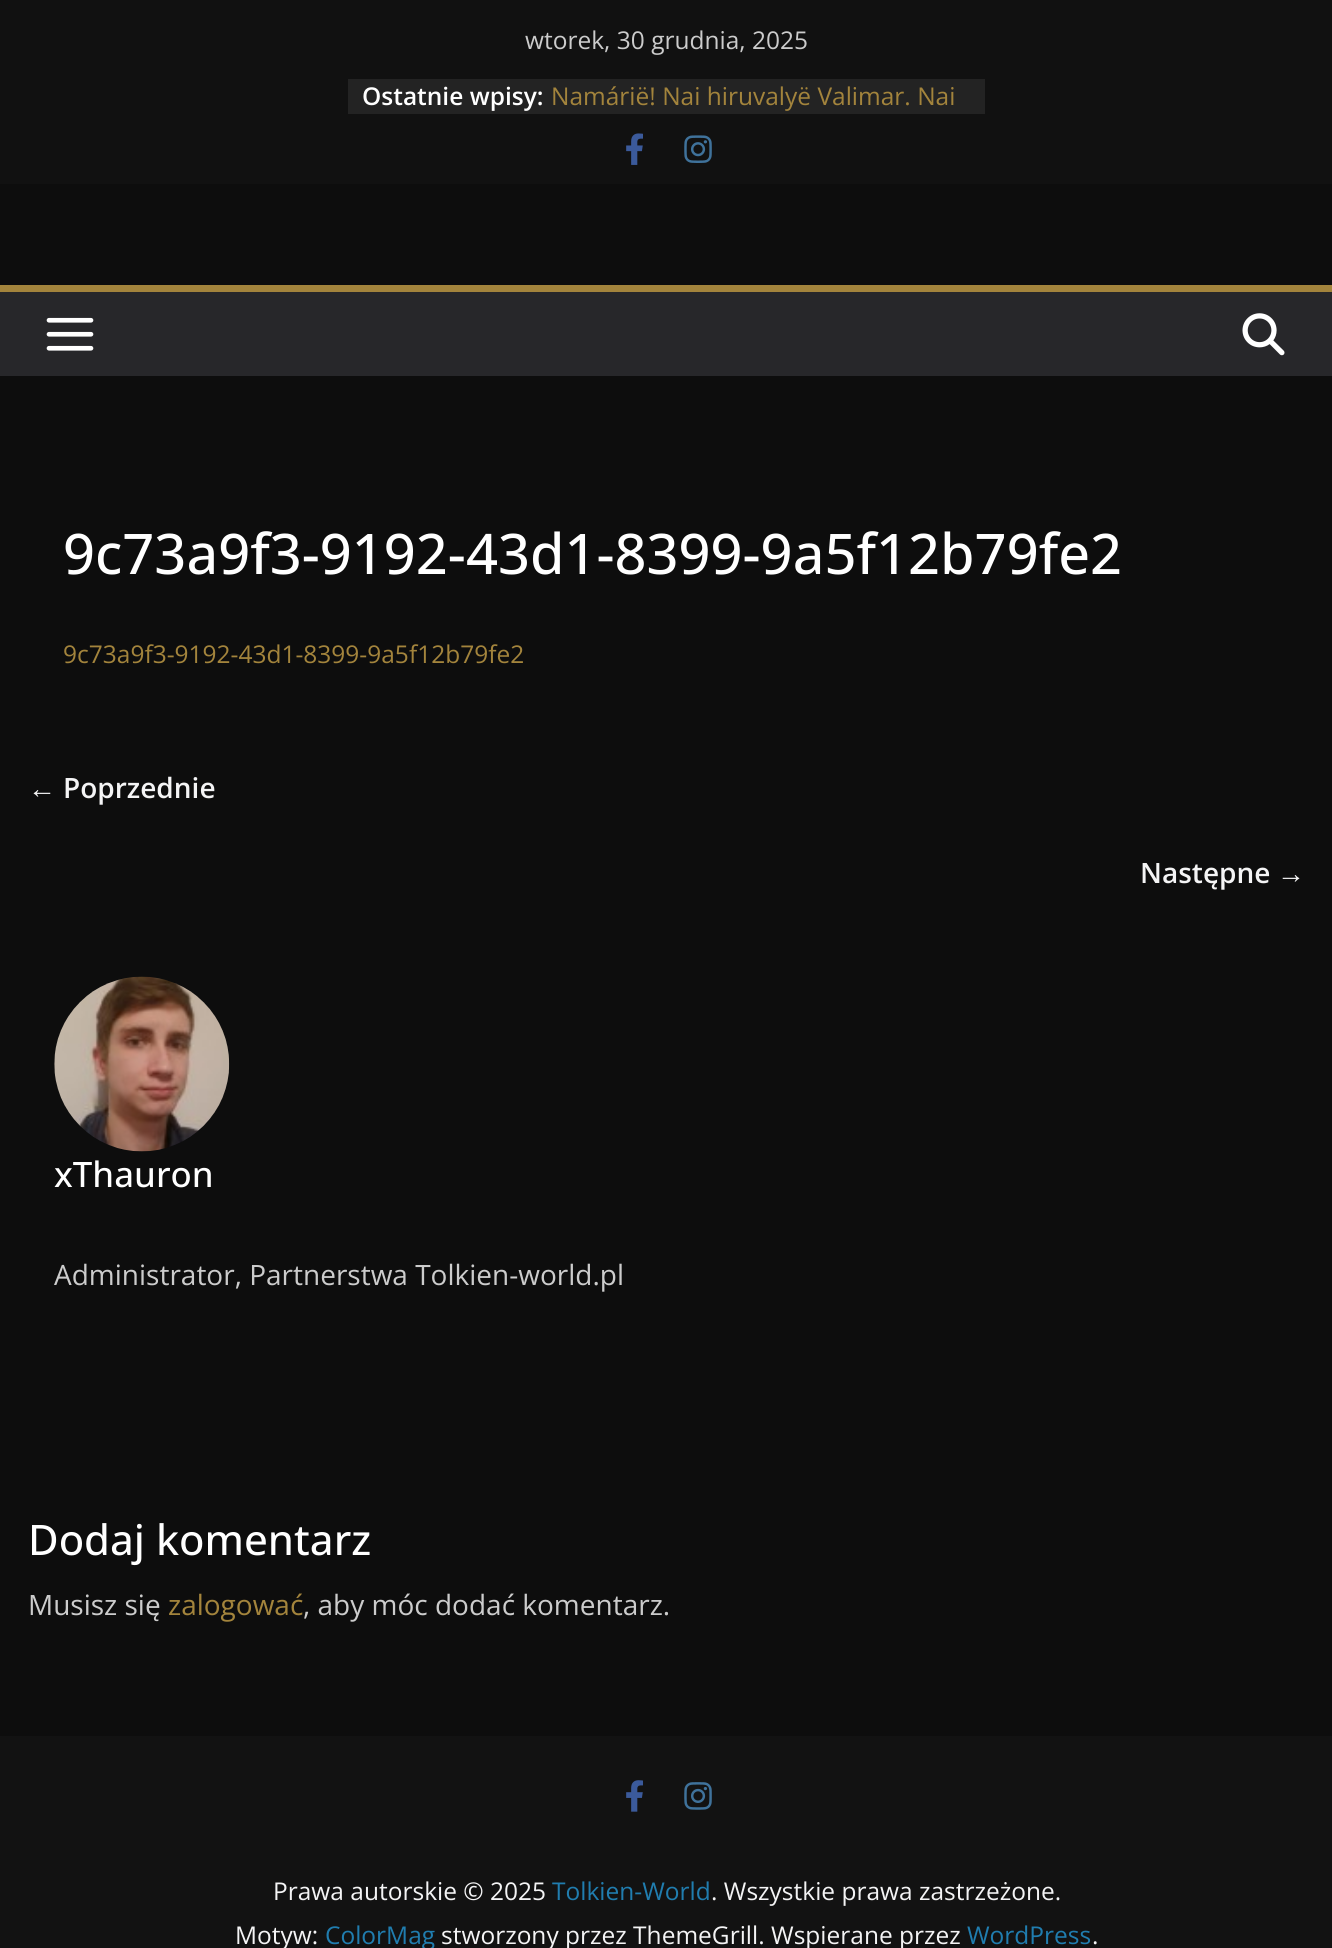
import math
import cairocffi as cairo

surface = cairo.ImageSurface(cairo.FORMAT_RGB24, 1332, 1948)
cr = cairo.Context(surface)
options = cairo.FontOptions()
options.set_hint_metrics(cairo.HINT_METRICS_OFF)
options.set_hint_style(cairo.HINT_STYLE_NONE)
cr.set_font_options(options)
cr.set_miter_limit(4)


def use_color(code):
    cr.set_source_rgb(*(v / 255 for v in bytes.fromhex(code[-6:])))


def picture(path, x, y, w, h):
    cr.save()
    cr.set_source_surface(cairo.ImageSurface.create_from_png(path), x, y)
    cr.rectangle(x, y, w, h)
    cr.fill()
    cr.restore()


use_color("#0d0d0d")
cr.paint()
use_color("#111111")
cr.rectangle(0, 0, 1332, 184)
cr.fill()
cr.select_font_face("Open Sans")
cr.set_font_size(24.5)
use_color("#cccccc")
cr.move_to(525, 49)
cr.show_text("wtorek, 30 grudnia, 2025")
use_color("#232323")
cr.rectangle(348, 79, 637, 35)
cr.fill()
cr.select_font_face("Open Sans SemiBold")
use_color("#ffffff")
cr.move_to(362, 105)
cr.show_text("Ostatnie wpisy:")
cr.select_font_face("Open Sans")
use_color("#a3843c")
cr.move_to(551, 105)
cr.show_text("Namárië! Nai hiruvalyë Valimar. Nai")
picture("img1.png", 626, 133, 17, 32)
picture("img2.png", 684, 135, 28, 28)
use_color("#27272a")
cr.rectangle(0, 292, 1332, 84)
cr.fill()
use_color("#a3843c")
cr.rectangle(0, 285, 1332, 7)
cr.fill()
picture("img3.png", 46, 317, 48, 34)
picture("img4.png", 1242, 313, 43, 43)
cr.select_font_face("Open Sans Medium")
cr.set_font_size(56)
use_color("#ffffff")
cr.move_to(63, 574)
cr.show_text("9c73a9f3-9192-43d1-8399-9a5f12b79fe2")
cr.select_font_face("Open Sans")
cr.set_font_size(24.5)
use_color("#a3843c")
cr.move_to(63, 663)
cr.show_text("9c73a9f3-9192-43d1-8399-9a5f12b79fe2")
cr.select_font_face("Liberation Serif", cairo.FONT_SLANT_NORMAL, cairo.FONT_WEIGHT_BOLD)
cr.set_font_size(28)
use_color("#f4f4f5")
cr.move_to(28, 798)
cr.show_text("←")
cr.select_font_face("Open Sans SemiBold")
cr.move_to(63, 798)
cr.show_text("Poprzednie")
cr.move_to(1140, 883)
cr.show_text("Następne")
cr.select_font_face("Liberation Serif", cairo.FONT_SLANT_NORMAL, cairo.FONT_WEIGHT_BOLD)
cr.move_to(1277, 883)
cr.show_text("→")
picture("img5.png", 54, 976, 176, 176)
cr.select_font_face("Open Sans Medium")
cr.set_font_size(35)
use_color("#ffffff")
cr.move_to(54, 1187)
cr.show_text("xThauron")
cr.select_font_face("Open Sans")
cr.set_font_size(28)
use_color("#cccccc")
cr.move_to(54, 1285)
cr.show_text("Administrator, Partnerstwa Tolkien-world.pl")
cr.select_font_face("Open Sans Medium")
cr.set_font_size(42)
use_color("#ffffff")
cr.move_to(28, 1555)
cr.show_text("Dodaj komentarz")
cr.select_font_face("Open Sans")
cr.set_font_size(28)
use_color("#cccccc")
cr.move_to(28, 1615)
cr.show_text("Musisz się")
use_color("#a3843c")
cr.move_to(168, 1615)
cr.show_text("zalogować")
use_color("#cccccc")
cr.move_to(303, 1615)
cr.show_text(", aby móc dodać komentarz.")
use_color("#121212")
cr.rectangle(0, 1736, 1332, 212)
cr.fill()
picture("img6.png", 626, 1780, 17, 32)
picture("img7.png", 684, 1782, 28, 28)
cr.set_font_size(24.5)
use_color("#f4f4f5")
cr.move_to(273, 1900)
cr.show_text("Prawa autorskie © 2025")
use_color("#207daf")
cr.move_to(552, 1900)
cr.show_text("Tolkien-World")
use_color("#f4f4f5")
cr.move_to(711, 1900)
cr.show_text(". Wszystkie prawa zastrzeżone.")
cr.move_to(235, 1944)
cr.show_text("Motyw:")
use_color("#207daf")
cr.move_to(325, 1944)
cr.show_text("ColorMag")
use_color("#f4f4f5")
cr.move_to(441, 1944)
cr.show_text("stworzony przez ThemeGrill. Wspierane przez")
use_color("#207daf")
cr.move_to(967, 1944)
cr.show_text("WordPress")
use_color("#f4f4f5")
cr.move_to(1092, 1944)
cr.show_text(".")
surface.write_to_png("result.png")
